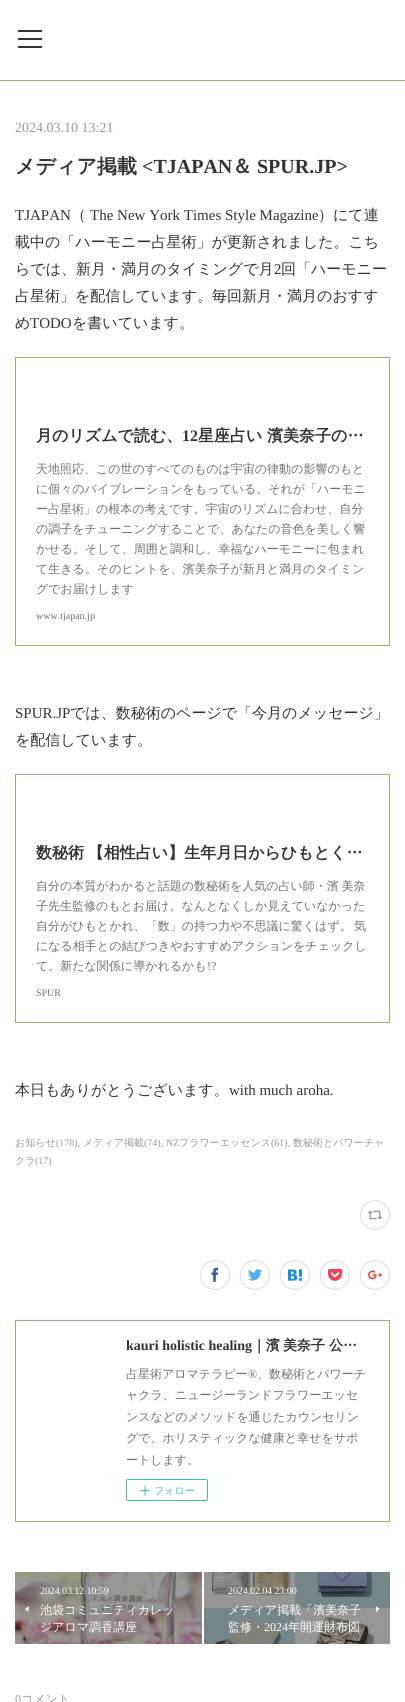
import math
import cairocffi as cairo

surface = cairo.ImageSurface(cairo.FORMAT_RGB24, 405, 1702)
cr = cairo.Context(surface)
options = cairo.FontOptions()
options.set_hint_metrics(cairo.HINT_METRICS_OFF)
options.set_hint_style(cairo.HINT_STYLE_NONE)
cr.set_font_options(options)
cr.set_miter_limit(4)


def use_color(code):
    cr.set_source_rgb(*(v / 255 for v in bytes.fromhex(code[-6:])))


def spaced_text(x, y, s, letter, word):
    cr.move_to(x, y)
    for ch in s:
        cr.show_text(ch)
        cr.rel_move_to(letter + word * (ch == ' '), 0)


def round_rect(x, y, w, h, r):
    cr.new_sub_path()
    for i, (u, v) in enumerate([(x + w - r, y + h - r), (x + r, y + h - r), (x + r, y + r), (x + w - r, y + r)]):
        cr.arc(u, v, r, i * math.pi / 2, (i + 1) * math.pi / 2)
    cr.close_path()


def picture(path, x, y, w, h):
    cr.save()
    cr.set_source_surface(cairo.ImageSurface.create_from_png(path), x, y)
    cr.rectangle(x, y, w, h)
    cr.fill()
    cr.restore()


use_color("#ffffff")
cr.paint()
use_color("#333333")
cr.rectangle(18, 30, 24, 2)
cr.fill()
cr.rectangle(18, 38, 24, 2)
cr.fill()
cr.rectangle(18, 46, 24, 2)
cr.fill()
use_color("#b7a36d")
cr.rectangle(0, 80, 405, 1)
cr.fill()
cr.select_font_face("Liberation Serif")
cr.set_font_size(14)
use_color("#999999")
cr.move_to(15, 132)
cr.show_text("2024.03.10 13:21")
cr.select_font_face("WenQuanYi Zen Hei", cairo.FONT_SLANT_NORMAL, cairo.FONT_WEIGHT_BOLD)
cr.set_font_size(20)
use_color("#333333")
cr.move_to(15, 173)
cr.show_text("メディア掲載")
cr.select_font_face("Liberation Serif", cairo.FONT_SLANT_NORMAL, cairo.FONT_WEIGHT_BOLD)
cr.move_to(142, 173)
cr.show_text("<TJAPAN")
cr.select_font_face("WenQuanYi Zen Hei", cairo.FONT_SLANT_NORMAL, cairo.FONT_WEIGHT_BOLD)
cr.move_to(232, 173)
cr.show_text("＆")
cr.select_font_face("Liberation Serif", cairo.FONT_SLANT_NORMAL, cairo.FONT_WEIGHT_BOLD)
cr.move_to(257, 173)
cr.show_text("SPUR.JP>")
cr.select_font_face("Liberation Serif")
cr.set_font_size(15)
cr.move_to(15, 220)
cr.show_text("TJAPAN")
cr.select_font_face("WenQuanYi Zen Hei Medium")
cr.move_to(71, 220)
cr.show_text("（")
cr.select_font_face("Liberation Serif")
cr.move_to(90, 220)
cr.show_text("The New York Times Style Magazine")
cr.select_font_face("WenQuanYi Zen Hei Medium")
cr.move_to(318, 220)
cr.show_text("）にて連")
cr.move_to(15, 247)
cr.show_text("載中の「ハーモニー占星術」が更新されました。こち")
cr.move_to(15, 274)
cr.show_text("らでは、新月・満月のタイミングで月")
cr.select_font_face("Liberation Serif")
cr.move_to(274, 274)
cr.show_text("2")
cr.select_font_face("WenQuanYi Zen Hei Medium")
cr.move_to(281, 274)
cr.show_text("回「ハーモニー")
cr.move_to(15, 301)
cr.show_text("占星術」を配信しています。毎回新月・満月のおすす")
cr.move_to(15, 328)
cr.show_text("め")
cr.select_font_face("Liberation Serif")
cr.move_to(30, 328)
cr.show_text("TODO")
cr.select_font_face("WenQuanYi Zen Hei Medium")
cr.move_to(72, 328)
cr.show_text("を書いています。")
cr.rectangle(15.5, 357.5, 374, 288)
use_color("#b7a36d")
cr.set_line_width(1)
cr.stroke()
cr.select_font_face("WenQuanYi Zen Hei", cairo.FONT_SLANT_NORMAL, cairo.FONT_WEIGHT_BOLD)
cr.set_font_size(16)
use_color("#333333")
cr.move_to(36, 441)
cr.show_text("月のリズムで読む、")
cr.select_font_face("Liberation Serif", cairo.FONT_SLANT_NORMAL, cairo.FONT_WEIGHT_BOLD)
cr.move_to(182, 441)
cr.show_text("12")
cr.select_font_face("WenQuanYi Zen Hei", cairo.FONT_SLANT_NORMAL, cairo.FONT_WEIGHT_BOLD)
cr.move_to(198, 441)
cr.show_text("星座占い")
cr.move_to(267, 441)
cr.show_text("濱美奈子の…")
cr.select_font_face("WenQuanYi Zen Hei Medium")
cr.set_font_size(12)
use_color("#707070")
cr.move_to(36, 473)
cr.show_text("天地照応、この世のすべてのものは宇宙の律動の影響のもと")
cr.move_to(36, 493)
cr.show_text("に個々のバイブレーションをもっている。それが「ハーモニ")
cr.move_to(36, 513)
cr.show_text("ー占星術」の根本の考えです。宇宙のリズムに合わせ、自分")
cr.move_to(36, 533)
cr.show_text("の調子をチューニングすることで、あなたの音色を美しく響")
cr.move_to(36, 553)
cr.show_text("かせる。そして、周囲と調和し、幸福なハーモニーに包まれ")
cr.move_to(36, 573)
cr.show_text("て生きる。そのヒントを、濱美奈子が新月と満月のタイミン")
cr.move_to(36, 593)
cr.show_text("グでお届けします")
cr.select_font_face("Liberation Serif")
cr.set_font_size(10)
cr.move_to(36, 619)
cr.show_text("www.tjapan.jp")
cr.set_font_size(15)
use_color("#333333")
cr.move_to(15, 718)
cr.show_text("SPUR.JP")
cr.select_font_face("WenQuanYi Zen Hei Medium")
cr.move_to(70, 718)
cr.show_text("では、数秘術のページで「今月のメッセージ」")
cr.move_to(15, 745)
cr.show_text("を配信しています。")
cr.rectangle(15.5, 774.5, 374, 248)
use_color("#b7a36d")
cr.stroke()
cr.select_font_face("WenQuanYi Zen Hei", cairo.FONT_SLANT_NORMAL, cairo.FONT_WEIGHT_BOLD)
cr.set_font_size(16)
use_color("#333333")
spaced_text(36, 858, "数秘術 【相性占い】生年月日からひもとく…", 0, -1)
cr.select_font_face("WenQuanYi Zen Hei Medium")
cr.set_font_size(12)
use_color("#707070")
spaced_text(36, 890, "自分の本質がわかると話題の数秘術を人気の占い師・濱 美奈", 0, -1)
cr.move_to(36, 910)
cr.show_text("子先生監修のもとお届け。なんとなくしか見えていなかった")
spaced_text(36, 930, "自分がひもとかれ、「数」の持つ力や不思議に驚くはず。 気", 0, -1)
cr.move_to(36, 950)
cr.show_text("になる相手との結びつきやおすすめアクションをチェックし")
cr.move_to(36, 970)
cr.show_text("て。新たな関係に導かれるかも")
cr.select_font_face("Liberation Serif")
cr.move_to(207, 970)
cr.show_text("!?")
cr.set_font_size(10)
cr.move_to(36, 996)
cr.show_text("SPUR")
cr.select_font_face("WenQuanYi Zen Hei Medium")
cr.set_font_size(15)
use_color("#333333")
cr.move_to(15, 1095)
cr.show_text("本日もありがとうございます。")
cr.select_font_face("Liberation Serif")
cr.move_to(229, 1095)
cr.show_text("with much aroha.")
cr.select_font_face("WenQuanYi Zen Hei Medium")
cr.set_font_size(10)
use_color("#999999")
cr.move_to(15, 1146)
cr.show_text("お知らせ")
cr.select_font_face("Liberation Serif")
cr.move_to(56, 1146)
cr.show_text("(178),")
cr.select_font_face("WenQuanYi Zen Hei Medium")
cr.move_to(83, 1146)
cr.show_text("メディア掲載")
cr.select_font_face("Liberation Serif")
cr.move_to(144, 1146)
cr.show_text("(74),")
cr.move_to(166, 1146)
cr.show_text("NZ")
cr.select_font_face("WenQuanYi Zen Hei Medium")
cr.move_to(179, 1146)
cr.show_text("フラワーエッセンス")
cr.select_font_face("Liberation Serif")
cr.move_to(271, 1146)
cr.show_text("(61),")
cr.select_font_face("WenQuanYi Zen Hei Medium")
cr.move_to(293, 1146)
cr.show_text("数秘術とパワーチャ")
cr.move_to(15, 1164)
cr.show_text("クラ")
cr.select_font_face("Liberation Serif")
cr.move_to(35, 1164)
cr.show_text("(17)")
cr.new_path()
cr.arc(375, 1215, 14.5, 0, 2 * math.pi)
use_color("#dddddd")
cr.stroke()
picture("img1.png", 368, 1210, 14, 10)
cr.arc(215, 1275, 14.5, 0, 2 * math.pi)
cr.stroke()
picture("img2.png", 211, 1267, 7, 15)
cr.arc(255, 1275, 14.5, 0, 2 * math.pi)
cr.stroke()
picture("img3.png", 248, 1269, 14, 12)
cr.arc(295, 1275, 14.5, 0, 2 * math.pi)
cr.stroke()
picture("img4.png", 288, 1269, 14, 12)
cr.arc(335, 1275, 14.5, 0, 2 * math.pi)
cr.stroke()
picture("img5.png", 328, 1268, 14, 13)
cr.arc(375, 1275, 14.5, 0, 2 * math.pi)
cr.stroke()
picture("img6.png", 368, 1270, 14, 10)
cr.rectangle(15.5, 1320.5, 374, 201)
use_color("#b7a36d")
cr.stroke()
cr.select_font_face("Liberation Serif", cairo.FONT_SLANT_NORMAL, cairo.FONT_WEIGHT_BOLD)
cr.set_font_size(14)
use_color("#333333")
cr.move_to(126, 1350)
cr.show_text("kauri holistic healing")
cr.select_font_face("WenQuanYi Zen Hei", cairo.FONT_SLANT_NORMAL, cairo.FONT_WEIGHT_BOLD)
cr.move_to(252, 1350)
cr.show_text("｜濱")
cr.move_to(283, 1350)
cr.show_text("美奈子")
cr.move_to(329, 1350)
cr.show_text("公…")
cr.select_font_face("WenQuanYi Zen Hei Medium")
cr.set_font_size(12)
use_color("#707070")
cr.move_to(126, 1378)
cr.show_text("占星術アロマテラピー")
cr.select_font_face("Liberation Serif")
cr.move_to(248, 1378)
cr.show_text("®")
cr.select_font_face("WenQuanYi Zen Hei Medium")
cr.move_to(257, 1378)
cr.show_text("、数秘術とパワーチ")
cr.move_to(126, 1399)
cr.show_text("ャクラ、ニュージーランドフラワーエッセ")
cr.move_to(126, 1421)
cr.show_text("ンスなどのメソッドを通じたカウンセリン")
cr.move_to(126, 1442)
cr.show_text("グで、ホリスティックな健康と幸せをサポ")
cr.move_to(126, 1464)
cr.show_text("ートします。")
round_rect(126.5, 1479.5, 81, 21, 1.5)
use_color("#3dc49d")
cr.stroke()
picture("img7.png", 140, 1485, 10, 11)
cr.set_font_size(10)
cr.move_to(154, 1494)
cr.show_text("フォロー")
picture("img8.png", 15, 1572, 187, 72)
cr.select_font_face("Liberation Serif")
use_color("#ffffff")
spaced_text(40, 1594, "2024.03.12 10:59", -0.1, 0)
cr.new_path()
cr.move_to(28.5, 1612)
cr.line_to(28.5, 1606)
cr.line_to(25, 1609)
cr.close_path()
cr.fill()
cr.select_font_face("WenQuanYi Zen Hei Medium")
cr.set_font_size(12)
cr.move_to(40, 1614)
cr.show_text("池袋コミュニティカレッ")
cr.move_to(40, 1631)
cr.show_text("ジアロマ調香講座")
picture("img9.png", 204, 1572, 186, 72)
cr.select_font_face("Liberation Serif")
cr.set_font_size(10)
spaced_text(228, 1594, "2024.02.04 23:00", -0.1, 0)
cr.select_font_face("WenQuanYi Zen Hei Medium")
cr.set_font_size(12)
cr.move_to(228, 1614)
cr.show_text("メディア掲載「濱美奈子")
cr.move_to(228, 1631)
cr.show_text("監修・")
cr.select_font_face("Liberation Serif")
cr.move_to(264, 1631)
cr.show_text("2024")
cr.select_font_face("WenQuanYi Zen Hei Medium")
cr.move_to(288, 1631)
cr.show_text("年開運財布図")
cr.new_path()
cr.move_to(376, 1606)
cr.line_to(376, 1612)
cr.line_to(379.5, 1609)
cr.close_path()
cr.fill()
cr.select_font_face("Liberation Serif")
use_color("#999999")
cr.move_to(15, 1703)
cr.show_text("0")
cr.select_font_face("WenQuanYi Zen Hei Medium")
cr.move_to(21, 1703)
cr.show_text("コメント")
surface.write_to_png("result.png")
